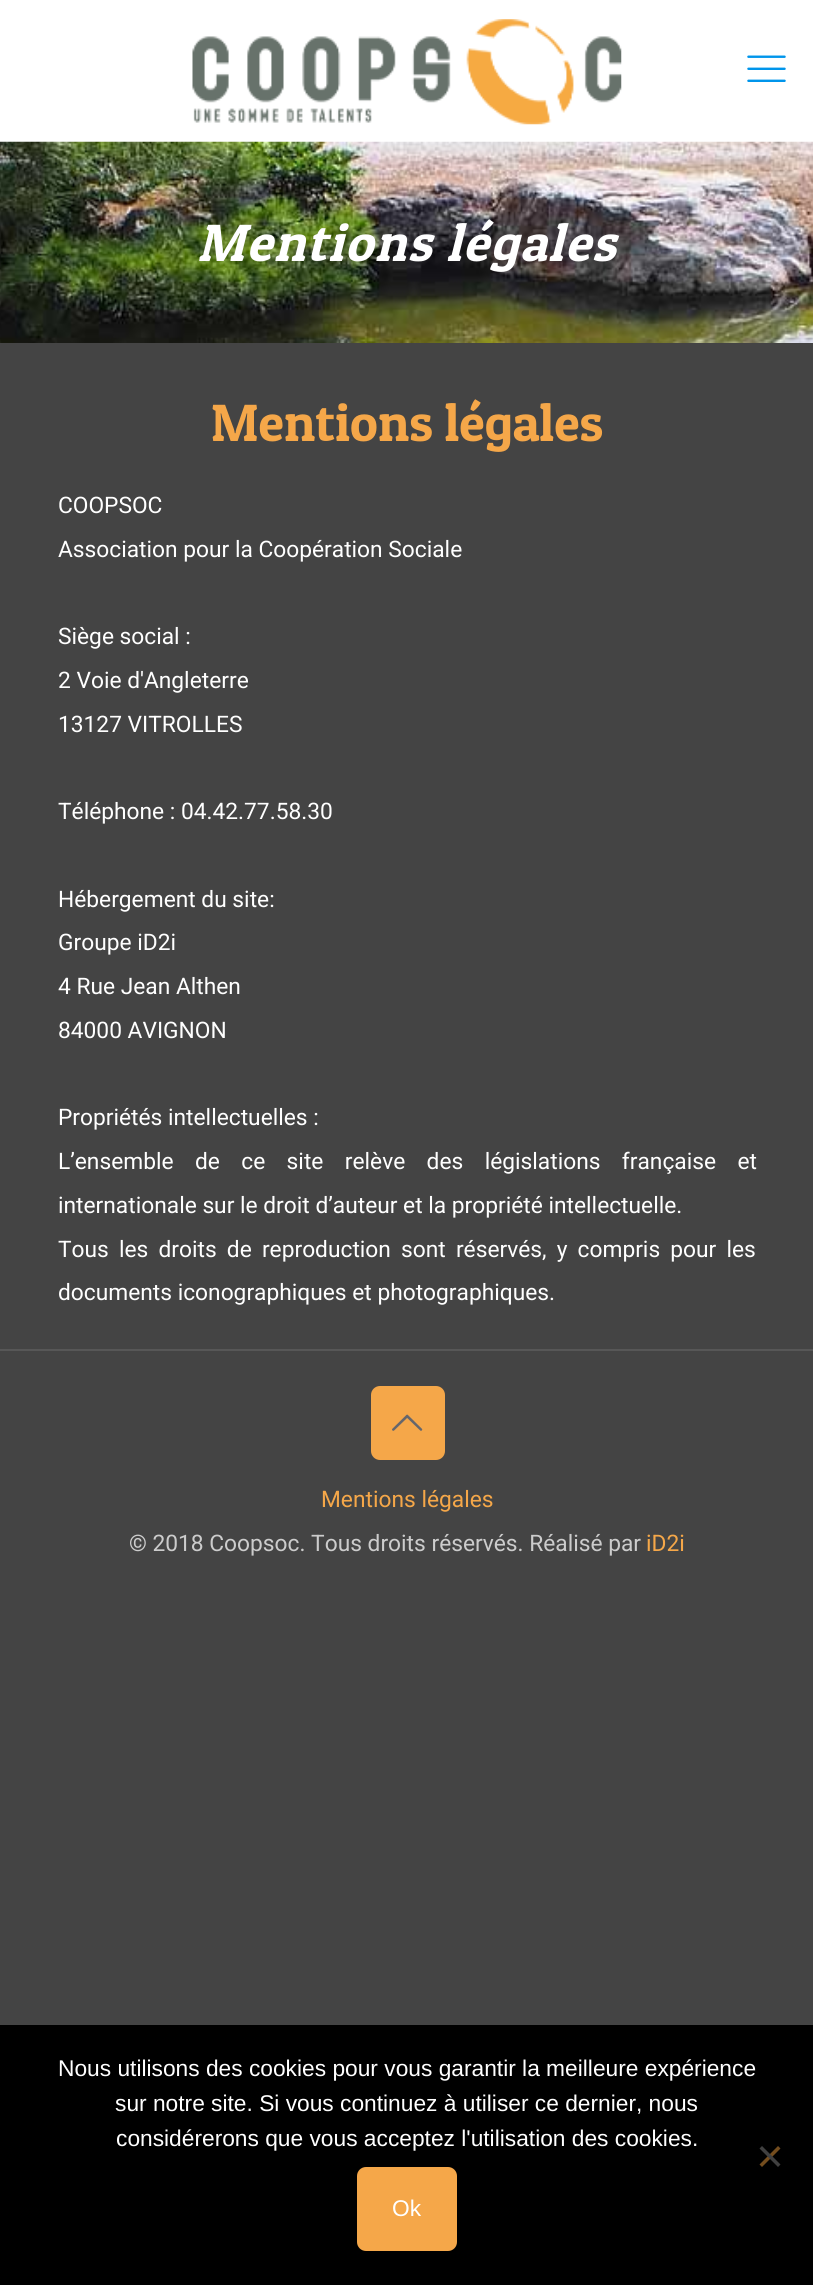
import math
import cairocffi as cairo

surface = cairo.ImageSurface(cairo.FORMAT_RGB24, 813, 2285)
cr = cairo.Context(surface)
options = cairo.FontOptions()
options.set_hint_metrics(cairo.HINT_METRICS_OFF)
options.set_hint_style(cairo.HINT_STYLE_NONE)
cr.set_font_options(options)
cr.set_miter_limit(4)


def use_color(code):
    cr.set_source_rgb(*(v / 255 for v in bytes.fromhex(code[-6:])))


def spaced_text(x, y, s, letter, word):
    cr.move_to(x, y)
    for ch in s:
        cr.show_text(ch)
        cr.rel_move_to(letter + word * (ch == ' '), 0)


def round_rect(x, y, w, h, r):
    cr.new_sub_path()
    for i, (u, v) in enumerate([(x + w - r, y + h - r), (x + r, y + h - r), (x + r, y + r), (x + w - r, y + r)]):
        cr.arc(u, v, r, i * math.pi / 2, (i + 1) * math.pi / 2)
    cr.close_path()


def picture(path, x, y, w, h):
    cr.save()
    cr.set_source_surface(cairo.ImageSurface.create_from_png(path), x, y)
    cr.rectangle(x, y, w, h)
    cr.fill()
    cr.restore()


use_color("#444444")
cr.paint()
use_color("#ffffff")
cr.rectangle(0, 0, 813, 142)
cr.fill()
picture("img1.png", 192, 19, 430, 106)
picture("img2.png", 747, 55, 39, 27)
picture("img3.png", 0, 141, 813, 202)
cr.select_font_face("Patua One", cairo.FONT_SLANT_ITALIC)
cr.set_font_size(52.5)
spaced_text(197, 261, "Mentions légales", 1.75, 0)
cr.select_font_face("Patua One")
use_color("#f5a749")
cr.move_to(211, 441)
cr.show_text("Mentions légales")
cr.select_font_face("Roboto")
cr.set_font_size(22.75)
use_color("#ffffff")
cr.move_to(58, 513)
cr.show_text("COOPSOC")
cr.move_to(58, 557)
cr.show_text("Association pour la Coopération Sociale")
cr.move_to(58, 644)
cr.show_text("Siège social :")
cr.move_to(58, 688)
cr.show_text("2 Voie d'Angleterre")
cr.move_to(58, 732)
cr.show_text("13127 VITROLLES")
cr.move_to(58, 819)
cr.show_text("Téléphone : 04.42.77.58.30")
cr.move_to(58, 907)
cr.show_text("Hébergement du site:")
cr.move_to(58, 950)
cr.show_text("Groupe iD2i")
cr.move_to(58, 994)
cr.show_text("4 Rue Jean Althen")
cr.move_to(58, 1038)
cr.show_text("84000 AVIGNON")
cr.move_to(58, 1125)
cr.show_text("Propriétés intellectuelles :")
spaced_text(58, 1169, "L’ensemble de ce site relève des législations française et", 0, 15.75)
cr.move_to(58, 1213)
cr.show_text("internationale sur le droit d’auteur et la propriété intellectuelle.")
spaced_text(58, 1257, "Tous les droits de reproduction sont réservés, y compris pour les", 0, 4.5)
cr.move_to(58, 1300)
cr.show_text("documents iconographiques et photographiques.")
use_color("#575757")
cr.rectangle(0, 1349, 813, 2)
cr.fill()
use_color("#f5a749")
round_rect(371, 1386, 74, 74, 9)
cr.fill()
picture("img4.png", 392, 1414, 31, 17)
cr.move_to(321, 1507)
cr.show_text("Mentions légales")
use_color("#cccccc")
cr.move_to(129, 1551)
cr.show_text("© 2018 Coopsoc. Tous droits réservés. Réalisé par")
use_color("#f5a749")
cr.move_to(646, 1551)
cr.show_text("iD2i")
use_color("#000000")
cr.rectangle(0, 2025, 813, 260)
cr.fill()
cr.select_font_face("Liberation Sans")
use_color("#ffffff")
cr.move_to(58, 2076)
cr.show_text("Nous utilisons des cookies pour vous garantir la meilleure expérience")
cr.move_to(115, 2111)
cr.show_text("sur notre site. Si vous continuez à utiliser ce dernier, nous")
cr.move_to(116, 2146)
cr.show_text("considérerons que vous acceptez l'utilisation des cookies.")
use_color("#744d1e")
cr.new_path()
cr.move_to(778, 2146)
cr.line_to(780.5, 2148.5)
cr.line_to(762, 2167)
cr.line_to(759.5, 2164.5)
cr.close_path()
cr.fill()
use_color("#404040")
cr.new_path()
cr.move_to(759.5, 2148.5)
cr.line_to(762, 2146)
cr.line_to(780.5, 2164.5)
cr.line_to(778, 2167)
cr.close_path()
cr.fill()
use_color("#f5a749")
round_rect(357, 2167, 100, 84, 9)
cr.fill()
use_color("#ffffff")
cr.move_to(392, 2216)
cr.show_text("Ok")
surface.write_to_png("result.png")
